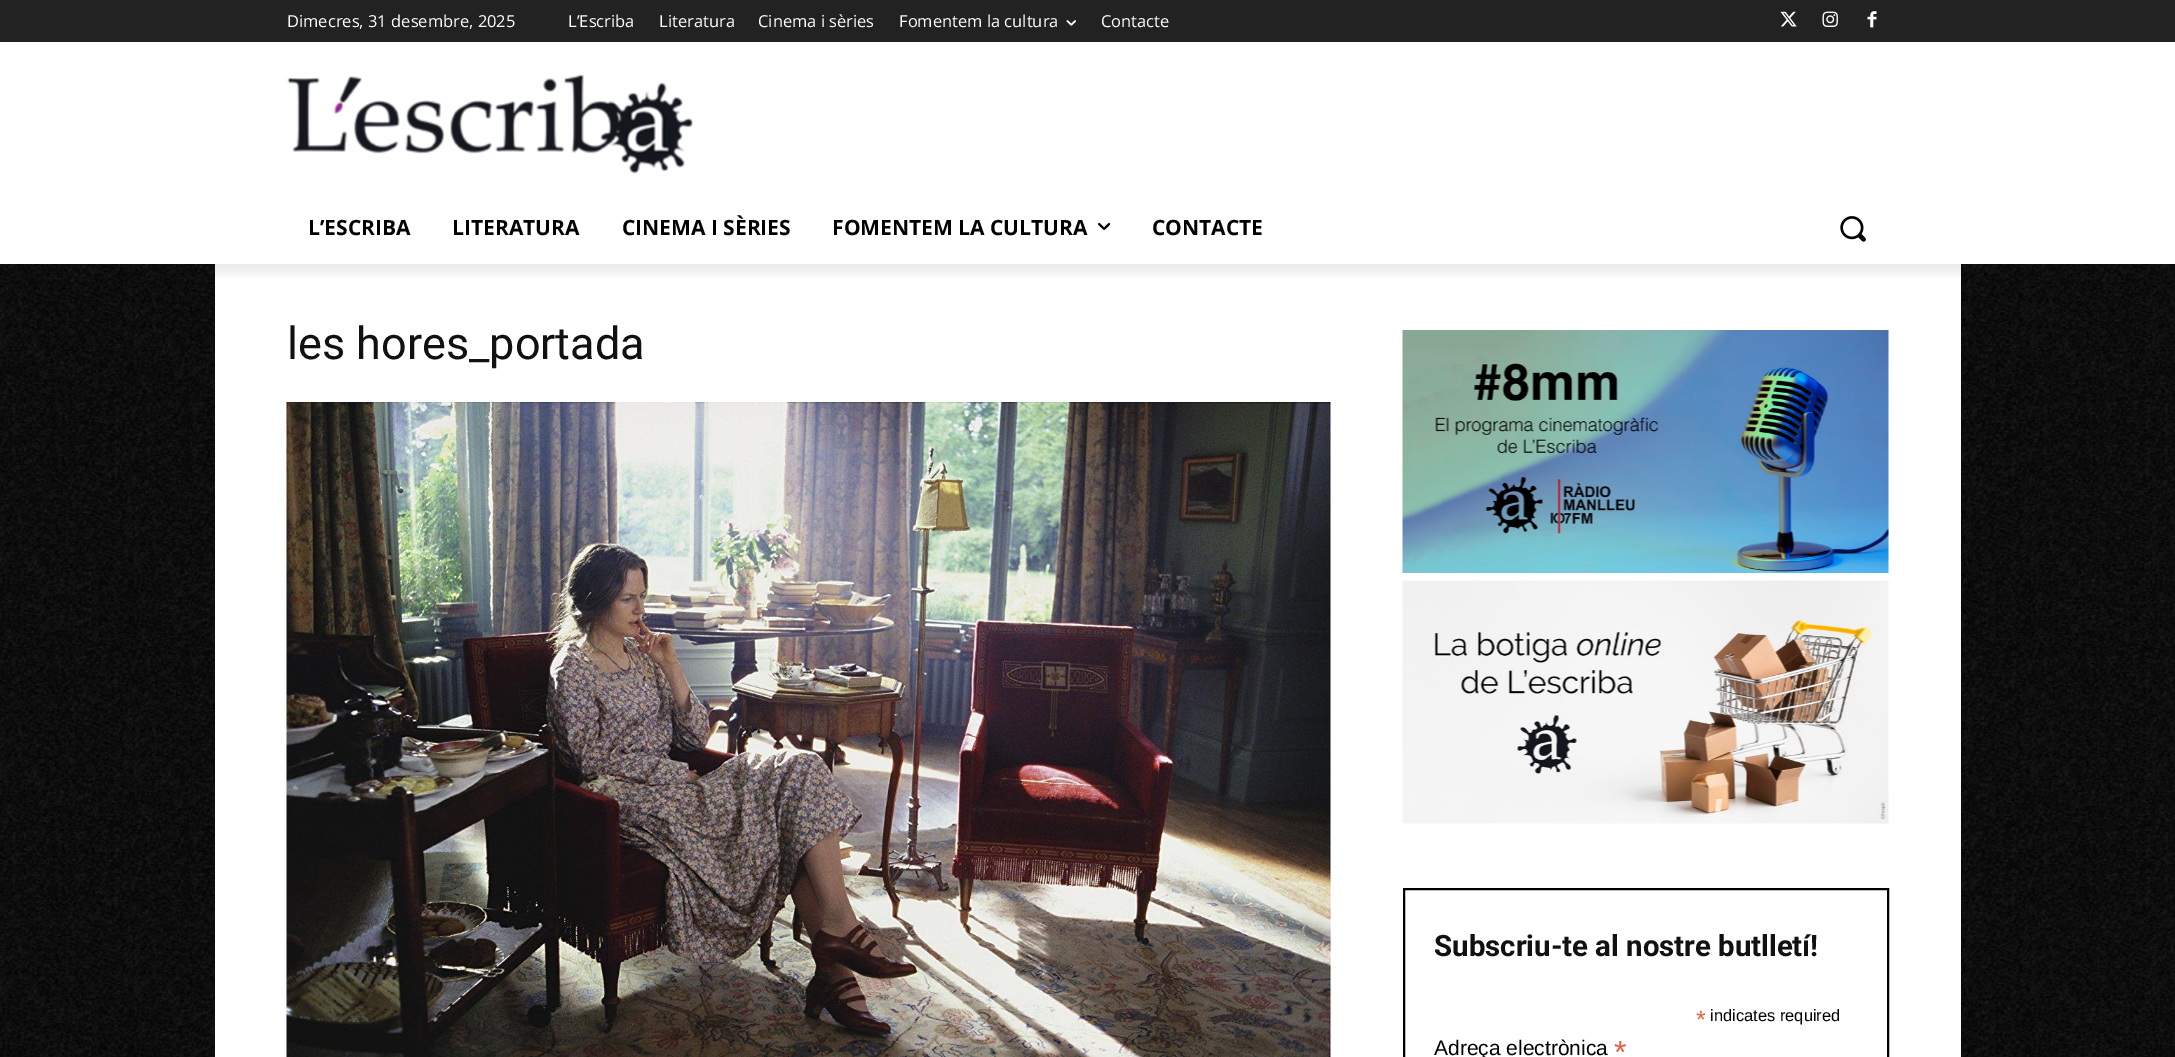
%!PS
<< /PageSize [2175 1057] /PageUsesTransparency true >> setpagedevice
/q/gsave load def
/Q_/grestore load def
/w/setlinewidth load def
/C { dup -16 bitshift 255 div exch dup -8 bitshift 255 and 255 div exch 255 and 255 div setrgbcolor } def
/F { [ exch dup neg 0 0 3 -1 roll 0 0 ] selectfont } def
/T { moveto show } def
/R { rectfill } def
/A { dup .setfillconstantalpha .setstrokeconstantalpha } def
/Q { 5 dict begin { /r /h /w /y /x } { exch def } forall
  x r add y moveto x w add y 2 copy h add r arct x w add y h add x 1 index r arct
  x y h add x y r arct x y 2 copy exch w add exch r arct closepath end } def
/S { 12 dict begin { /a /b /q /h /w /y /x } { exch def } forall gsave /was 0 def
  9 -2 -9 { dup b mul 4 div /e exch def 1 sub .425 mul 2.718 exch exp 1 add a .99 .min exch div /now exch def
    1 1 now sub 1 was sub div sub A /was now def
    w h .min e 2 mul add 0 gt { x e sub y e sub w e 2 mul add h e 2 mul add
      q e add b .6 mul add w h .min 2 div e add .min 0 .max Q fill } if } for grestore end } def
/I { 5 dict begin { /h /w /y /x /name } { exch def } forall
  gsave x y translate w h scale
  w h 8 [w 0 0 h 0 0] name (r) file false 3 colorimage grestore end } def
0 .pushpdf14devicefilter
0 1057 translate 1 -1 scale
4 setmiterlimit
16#FFFFFF C
0 0 2175 1057 R
(1.rgb) 0 264 2175 793 I
16#222222 C
0 0 2175 42 R
(3.rgb) 1780 11 17 16 I
(4.rgb) 1822 11 16 16 I
(5.rgb) 1867 11 10 17 I
(6.rgb) 287 74 406 100 I
16#FFFFFF C
215 264 1746 793 R
q
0 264 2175 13 rectclip
16#000000 C
0 9 2175 264 0 6 .08 S
Q_
/OpenSans-Regular 16.5 F
(Dimecres, 31 desembre, 2025) 287 27 T
(L’Escriba) 568 27 T
(Literatura) 659 27 T
(Cinema i sèries) 758 27 T
(Fomentem la cultura) 899 27 T
(2.rgb) 1066 20 10 6 I
(Contacte) 1101 27 T
/OpenSans-Bold 21 F
16#000000 C
(L’ESCRIBA) 308 235 T
(LITERATURA) 452 235 T
(CINEMA I SÈRIES) 622 235 T
(FOMENTEM LA CULTURA) 832 235 T
(7.rgb) 1098 222 13 8 I
(CONTACTE) 1152 235 T
(8.rgb) 1840 216 26 26 I
/Roboto-Regular 45 F
16#111111 C
(les hores_portada) 287 359 T
(9.rgb) 286 402 1045 655 I
(10.rgb) 1402 330 487 243 I
(11.rgb) 1402 580 487 244 I
16#000000 C
2 w
1404 889 484 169 rectstroke
/Roboto-Bold 29.4 F
16#111111 C
(Subscriu-te al nostre butlletí!) 1434 956 T
/LiberationSans-Regular 25 F
16#E85C41 C
(*) 1696 1028 T
/LiberationSans-Regular 16.5 F
16#000000 C
(indicates required) 1710 1021 T
/LiberationSans-Regular 21 F
(Adreça electrònica) 1434 1055 T
/LiberationSans-Regular 32 F
16#E85C41 C
(*) 1614 1063 T
.poppdf14devicefilter showpage
